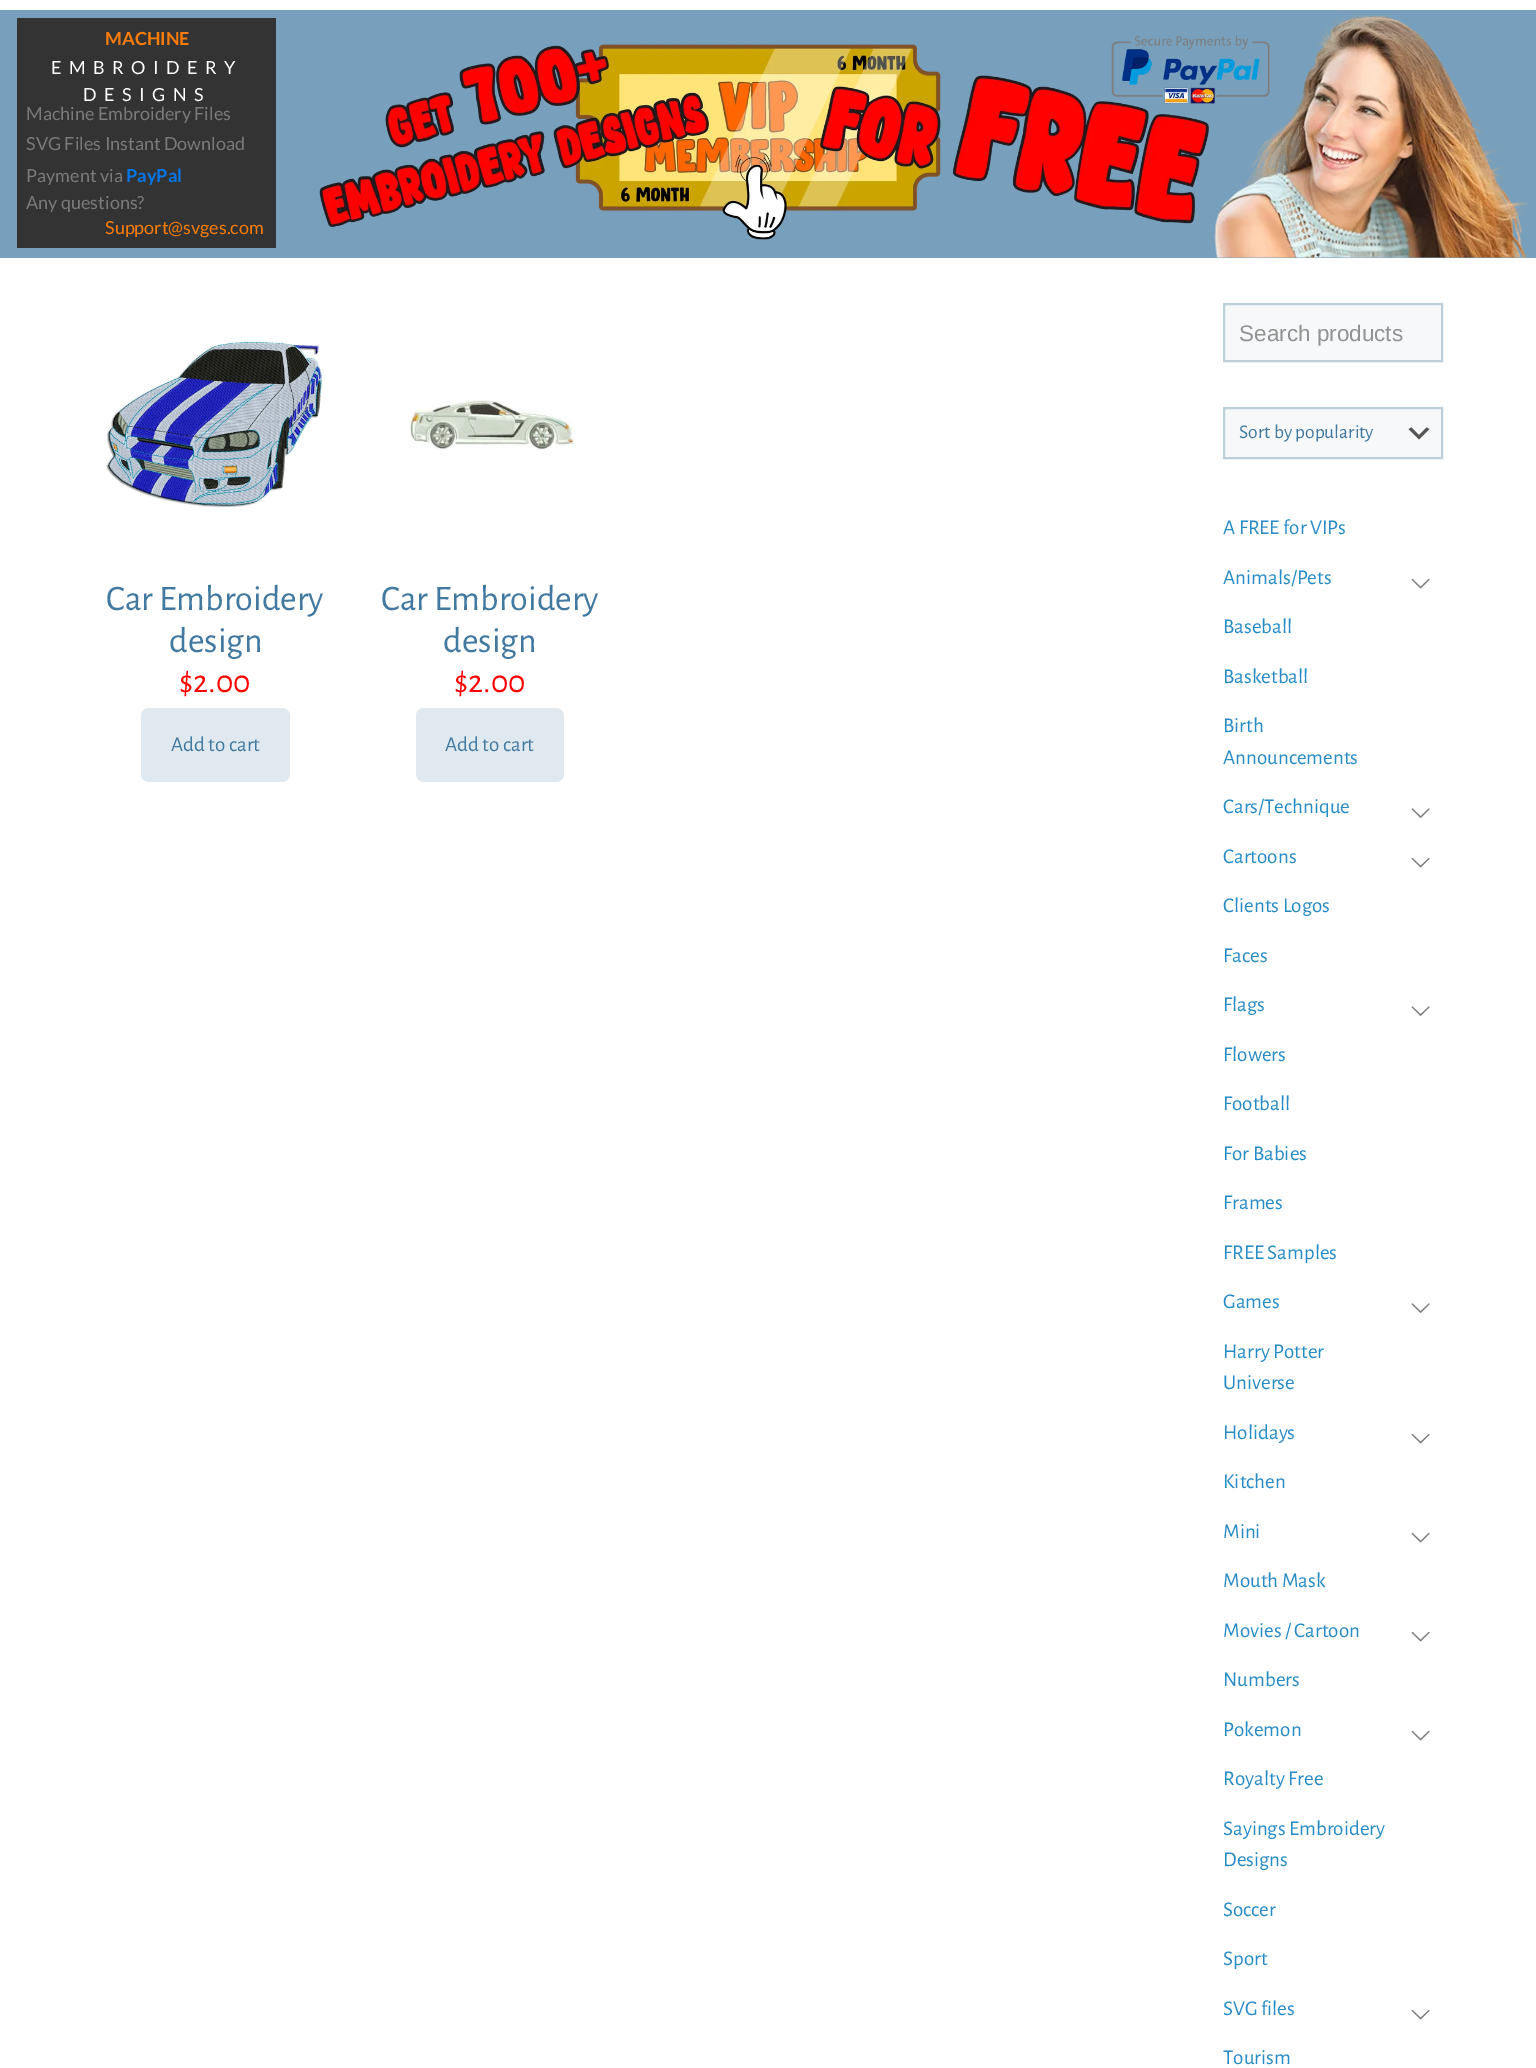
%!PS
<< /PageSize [1536 2068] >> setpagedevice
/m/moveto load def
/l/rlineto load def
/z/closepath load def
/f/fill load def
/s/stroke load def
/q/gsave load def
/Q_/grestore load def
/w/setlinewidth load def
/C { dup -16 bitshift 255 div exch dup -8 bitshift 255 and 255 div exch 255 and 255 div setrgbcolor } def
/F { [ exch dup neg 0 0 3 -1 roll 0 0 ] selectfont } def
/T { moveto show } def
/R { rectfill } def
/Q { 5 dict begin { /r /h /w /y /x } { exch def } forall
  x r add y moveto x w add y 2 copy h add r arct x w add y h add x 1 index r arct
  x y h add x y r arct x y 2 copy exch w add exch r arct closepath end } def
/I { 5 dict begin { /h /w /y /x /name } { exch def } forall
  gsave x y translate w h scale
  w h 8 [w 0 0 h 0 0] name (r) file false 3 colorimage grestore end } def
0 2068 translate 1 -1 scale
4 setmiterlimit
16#FFFFFF C
0 0 1536 2068 R
16#78A0BD C
0 10 1536 248 R
16#333333 C
17 18 259 230 R
(1.rgb) 1214 13 314 245 I
/Lato-Bold 18 F
16#F87C09 C
(MACHINE) 105 45 T
/Lato-Regular 18 F
16#FFFFFF C
51 74 m 7.5 0 (EMBROIDERY) ashow
83 101 m 7.5 0 (DESIGNS) ashow
(2.rgb) 1111 35 159 69 I
16#7A7A7A C
(Machine Embroidery Files) 26 120 T
(SVG Files Instant Download) 26 150 T
(Payment via) 26 182 T
/Lato-Bold 18 F
16#0677E8 C
(PayPal) 126 182 T
(3.rgb) 319 44 890 196 I
/Lato-Regular 18 F
16#7A7A7A C
(Any questions?) 26 209 T
16#F87C09 C
(Support@svges.com) 105 234 T
(4.rgb) 106 341 217 167 I
/AlegreyaSans-Regular 36 F
16#4179A0 C
(Car Embroidery) 106 610 T
(design) 169 652 T
/AlegreyaSans-Regular 33 F
16#FF0000 C
($2.00) 179 692 T
16#E1E9F0 C
141 708 149 74 8 Q f
/AlegreyaSans-Regular 21 F
16#4179A0 C
(Add to cart) 171 751 T
(5.rgb) 410 400 166 50 I
/AlegreyaSans-Regular 36 F
(Car Embroidery) 381 610 T
(design) 443 652 T
/AlegreyaSans-Regular 33 F
16#FF0000 C
($2.00) 454 692 T
16#E1E9F0 C
416 708 148 74 8 Q f
/AlegreyaSans-Regular 21 F
16#4179A0 C
(Add to cart) 445 751 T
16#F7F8F9 C
1224 304 m 218 0 l 0 57 l -218 0 l z q f Q_
16#BECFDC C
2 w
s
/LiberationSans-Regular 22.5 F
16#929292 C
(Search products) 1239 341 T
16#F7F8F9 C
1225 409 216 48 R
16#555555 C
1411.5 427.5 m 7.5 7.5 l 7.5 -7.5 l 3 1.5 l -10.5 10.5 l -10.5 -10.5 l z f
16#BECFDC C
1224 408 218 50 rectstroke
/AlegreyaSans-Regular 19.5 F
16#4179A0 C
(Sort by popularity) 1239 438 T
/AlegreyaSans-Regular 21 F
16#278CC6 C
(A FREE for VIPs) 1223 534 T
(Animals/Pets) 1223 584 T
(6.rgb) 1411 578 19 11 I
(Baseball) 1223 633 T
(Basketball) 1223 683 T
(Birth) 1223 732 T
(Announcements) 1223 764 T
(Cars/Technique) 1223 813 T
(7.rgb) 1411 808 19 10 I
(Cartoons) 1223 863 T
(6.rgb) 1411 857 19 11 I
(Clients Logos) 1223 912 T
(Faces) 1223 962 T
(Flags) 1223 1011 T
(7.rgb) 1411 1006 19 10 I
(Flowers) 1223 1061 T
(Football) 1223 1110 T
(For Babies) 1223 1160 T
(Frames) 1223 1209 T
(FREE Samples) 1223 1259 T
(Games) 1223 1308 T
(7.rgb) 1411 1303 19 10 I
(Harry Potter) 1223 1358 T
(Universe) 1223 1389 T
(Holidays) 1223 1439 T
(6.rgb) 1411 1433 19 11 I
(Kitchen) 1223 1488 T
(Mini) 1223 1538 T
(6.rgb) 1411 1532 19 11 I
(Mouth Mask) 1223 1587 T
(Movies / Cartoon) 1223 1637 T
(6.rgb) 1411 1631 19 11 I
(Numbers) 1223 1686 T
(Pokemon) 1223 1736 T
(6.rgb) 1411 1730 19 11 I
(Royalty Free) 1223 1785 T
(Sayings Embroidery) 1223 1835 T
(Designs) 1223 1866 T
(Soccer) 1223 1916 T
(Sport) 1223 1965 T
(SVG files) 1223 2015 T
(6.rgb) 1411 2009 19 11 I
(Tourism) 1223 2064 T
showpage
